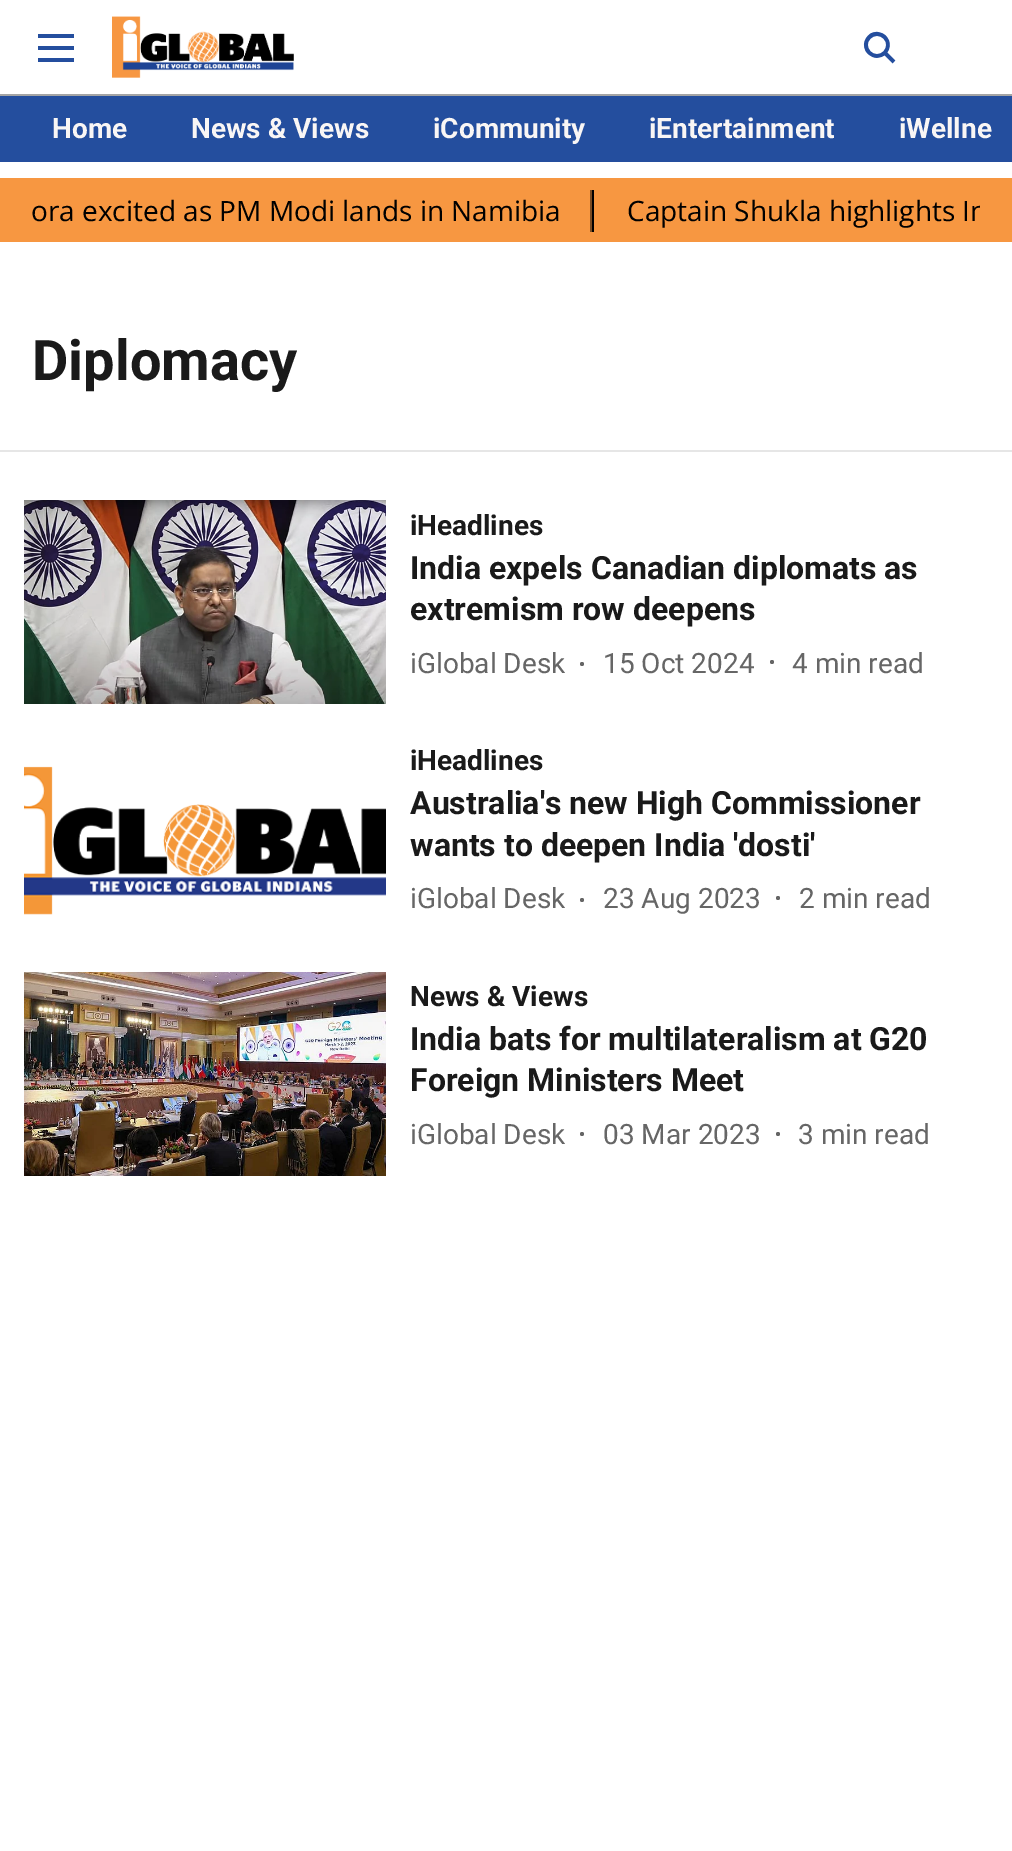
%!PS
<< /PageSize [1012 1851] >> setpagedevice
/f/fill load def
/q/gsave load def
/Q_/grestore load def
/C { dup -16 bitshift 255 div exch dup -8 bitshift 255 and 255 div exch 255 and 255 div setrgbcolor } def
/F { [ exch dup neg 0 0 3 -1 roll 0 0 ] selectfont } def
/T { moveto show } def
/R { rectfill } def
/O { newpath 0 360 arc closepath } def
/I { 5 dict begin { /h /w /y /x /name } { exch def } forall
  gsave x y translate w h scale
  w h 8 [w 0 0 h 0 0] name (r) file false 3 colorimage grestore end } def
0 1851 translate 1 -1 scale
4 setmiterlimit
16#FFFFFF C
0 0 1012 1851 R
16#A4A4A4 C
0 94 1012 2 R
(1.rgb) 38 34 36 28 I
(2.rgb) 112 16 182 62 I
(3.rgb) 863 31 33 33 I
16#244E9E C
0 96 1012 66 R
/Roboto-Bold 28 F
16#F9F6F5 C
(Home) 52 138 T
(News & Views) 191 138 T
(iCommunity) 433 138 T
(iEntertainment) 649 138 T
(iWellne) 899 138 T
16#F79741 C
0 178 1012 64 R
16#000000 C
592 190 2 42 R
/OpenSans-Regular 28 F
(ora excited as PM Modi lands in Namibia) 31 221 T
16#7C4C21 C
590 190 2 42 R
q
32 190 948 42 rectclip
16#000000 C
(Captain Shukla highlights In) 627 221 T
Q_
16#E6E6E6 C
0 450 1012 2 R
/Roboto-Bold 56 F
16#1A1A1A C
(Diplomacy) 32 380 T
(4.rgb) 24 500 362 204 I
/Roboto-Bold 28 F
(iHeadlines) 410 535 T
/Roboto-Bold 32 F
(India expels Canadian diplomats as) 410 579 T
(extremism row deepens) 410 620 T
/Roboto-Regular 28 F
16#666666 C
(iGlobal Desk) 410 673 T
582 664 2 O f
(15 Oct 2024) 603 673 T
772 662 2 O f
(4 min read) 792 673 T
(5.rgb) 24 766 362 149 I
/Roboto-Bold 28 F
16#1A1A1A C
(iHeadlines) 410 770 T
/Roboto-Bold 32 F
(Australia's new High Commissioner) 410 814 T
(wants to deepen India 'dosti') 410 856 T
/Roboto-Regular 28 F
16#666666 C
(iGlobal Desk) 410 908 T
582 900 2 O f
(23 Aug 2023) 603 908 T
778 898 2 O f
(2 min read) 799 908 T
(6.rgb) 24 972 362 204 I
/Roboto-Bold 28 F
16#1A1A1A C
(News & Views) 410 1006 T
/Roboto-Bold 32 F
(India bats for multilateralism at G20) 410 1050 T
(Foreign Ministers Meet) 410 1091 T
/Roboto-Regular 28 F
16#666666 C
(iGlobal Desk) 410 1144 T
582 1134 2 O f
(03 Mar 2023) 603 1144 T
778 1134 2 O f
(3 min read) 798 1144 T
showpage
